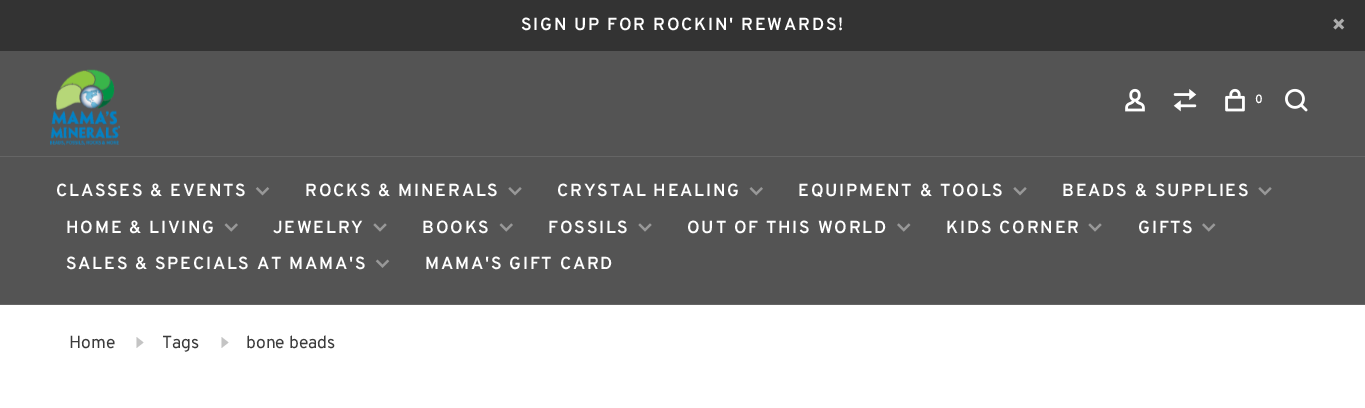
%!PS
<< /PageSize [1365 408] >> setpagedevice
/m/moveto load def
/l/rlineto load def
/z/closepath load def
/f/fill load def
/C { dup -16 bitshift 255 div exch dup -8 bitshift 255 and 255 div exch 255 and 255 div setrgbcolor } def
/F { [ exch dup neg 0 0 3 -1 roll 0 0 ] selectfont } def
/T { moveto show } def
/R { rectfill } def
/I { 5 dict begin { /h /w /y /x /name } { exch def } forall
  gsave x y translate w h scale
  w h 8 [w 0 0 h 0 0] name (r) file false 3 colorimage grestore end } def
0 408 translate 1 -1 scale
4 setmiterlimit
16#FFFFFF C
0 0 1365 408 R
16#333333 C
0 0 1365 51 R
/Overpass-SemiBold 17.5 F
16#FFFFFF C
521 30 m 1.75 0 (SIGN UP FOR ROCKIN' REWARDS!) ashow
(1.rgb) 1333 18 12 12 I
16#545454 C
0 51 1365 253 R
16#656565 C
0 156 1365 1 R
(2.rgb) 50 69 70 77 I
(3.rgb) 1125 88 20 24 I
(4.rgb) 1173 89 24 23 I
(5.rgb) 1225 88 20 24 I
/Overpass-SemiBold 12 F
16#FFFFFF C
1255 103 m 1.75 0 (0) ashow
(6.rgb) 1285 88 23 24 I
16#656565 C
0 304 1365 1 R
/Overpass-SemiBold 17.5 F
16#FFFFFF C
56 196 m 1.75 0 (CLASSES & EVENTS) ashow
(7.rgb) 255 187 15 9 I
305 196 m 1.75 0 (ROCKS & MINERALS) ashow
(8.rgb) 508 187 14 9 I
557 196 m 1.75 0 (CRYSTAL HEALING) ashow
(9.rgb) 749 187 14 9 I
798 196 m 1.75 0 (EQUIPMENT & TOOLS) ashow
(8.rgb) 1013 187 14 9 I
1062 196 m 1.75 0 (BEADS & SUPPLIES) ashow
(8.rgb) 1258 187 14 9 I
66 233 m 1.75 0 (HOME & LIVING) ashow
(10.rgb) 224 223 14 9 I
273 233 m 1.75 0 (JEWELRY) ashow
(11.rgb) 373 223 14 9 I
422 233 m 1.75 0 (BOOKS) ashow
(10.rgb) 499 223 14 9 I
548 233 m 1.75 0 (FOSSILS) ashow
(11.rgb) 638 223 14 9 I
687 233 m 1.75 0 (OUT OF THIS WORLD) ashow
(12.rgb) 897 223 14 9 I
946 233 m 1.75 0 (KIDS CORNER) ashow
(11.rgb) 1088 223 14 9 I
1138 233 m 1.75 0 (GIFTS) ashow
(12.rgb) 1202 223 14 9 I
66 269 m 1.75 0 (SALES & SPECIALS AT MAMA'S) ashow
(13.rgb) 375 259 15 9 I
425 269 m 1.75 0 (MAMA'S GIFT CARD) ashow
/Overpass-Regular 17.5 F
16#3B3B3B C
(Home) 69 348 T
16#C4C4C4 C
136.5 348 m 7 -5.5 l -7 -5.5 l z f
16#3B3B3B C
(Tags) 162 348 T
16#C4C4C4 C
221.5 348 m 7 -5.5 l -7 -5.5 l z f
16#3B3B3B C
(bone beads) 246 348 T
showpage
